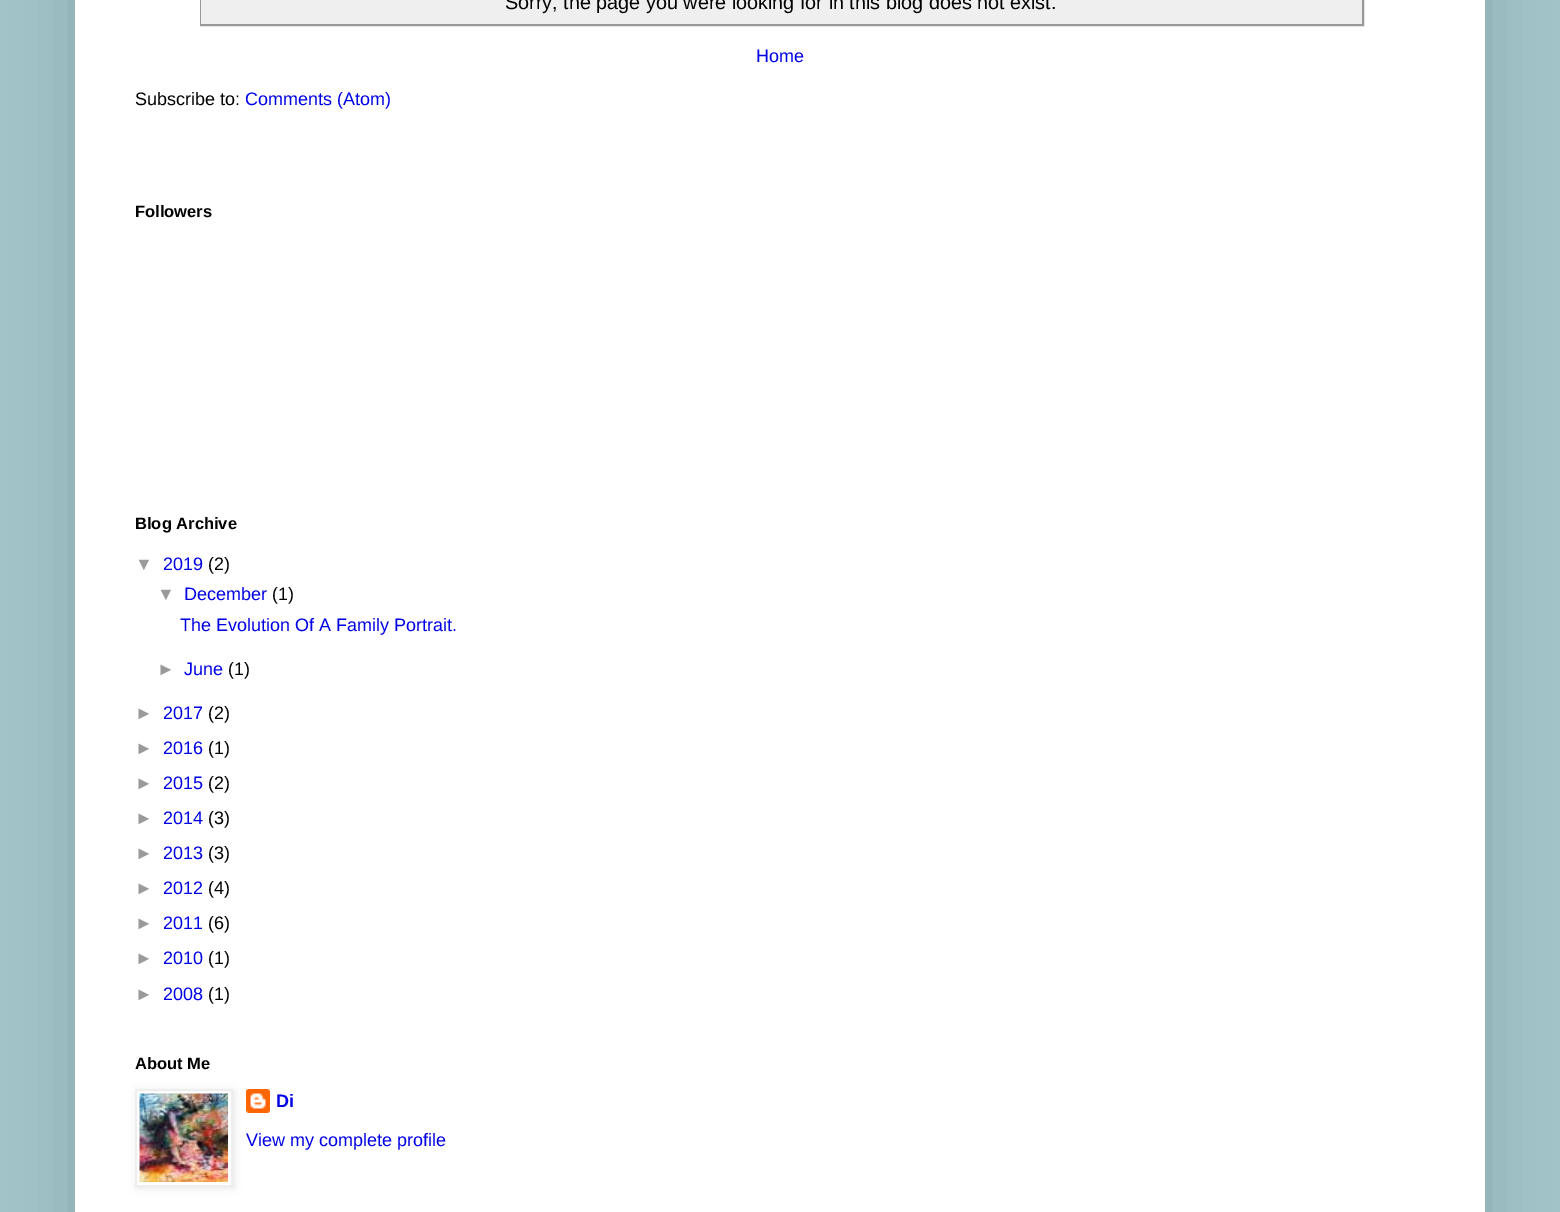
%!PS
<< /PageSize [1560 1212] /PageUsesTransparency true >> setpagedevice
/m/moveto load def
/l/rlineto load def
/z/closepath load def
/f/fill load def
/s/stroke load def
/q/gsave load def
/Q_/grestore load def
/w/setlinewidth load def
/C { dup -16 bitshift 255 div exch dup -8 bitshift 255 and 255 div exch 255 and 255 div setrgbcolor } def
/F { [ exch dup neg 0 0 3 -1 roll 0 0 ] selectfont } def
/T { moveto show } def
/R { rectfill } def
/A { dup .setfillconstantalpha .setstrokeconstantalpha } def
/Q { 5 dict begin { /r /h /w /y /x } { exch def } forall
  x r add y moveto x w add y 2 copy h add r arct x w add y h add x 1 index r arct
  x y h add x y r arct x y 2 copy exch w add exch r arct closepath end } def
/S { 12 dict begin { /a /b /q /h /w /y /x } { exch def } forall gsave /was 0 def
  9 -2 -9 { dup b mul 4 div /e exch def 1 sub .425 mul 2.718 exch exp 1 add a .99 .min exch div /now exch def
    1 1 now sub 1 was sub div sub A /was now def
    w h .min e 2 mul add 0 gt { x e sub y e sub w e 2 mul add h e 2 mul add
      q e add b .6 mul add w h .min 2 div e add .min 0 .max Q fill } if } for grestore end } def
/I { 5 dict begin { /h /w /y /x /name } { exch def } forall
  gsave x y translate w h scale
  w h 8 [w 0 0 h 0 0] name (r) file false 3 colorimage grestore end } def
0 .pushpdf14devicefilter
0 1212 translate 1 -1 scale
4 setmiterlimit
16#A2C4C9 C
0 0 1560 1212 R
16#000000 C
75 -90 1410 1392 0 30 .15 S
16#FFFFFF C
75 0 1410 1212 R
16#999999 C
2 w
201 -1 1162 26 rectstroke
16#EFEFEF C
201 0 1161 24 R
/LiberationSans-Regular 19.8 F
16#000000 C
(Sorry, the page you were looking for in this blog does not exist.) 505 9 T
/LiberationSans-Regular 18 F
16#0000E5 C
(Home) 756 62 T
16#000000 C
(Subscribe to:) 135 105 T
16#0000E5 C
(Comments \(Atom\)) 245 105 T
/LiberationSans-Bold 16.5 F
16#000000 C
(Followers) 135 217 T
(Blog Archive) 135 529 T
/LiberationSans-Regular 18 F
16#9A9A9A C
(▼) 135 570 T
16#0000E5 C
(2019) 163 570 T
16#000000 C
(\(2\)) 208 570 T
16#9A9A9A C
(▼) 157 600 T
16#0000E5 C
(December) 184 600 T
16#000000 C
(\(1\)) 272 600 T
16#0000E5 C
(The Evolution Of A Family Portrait.) 180 631 T
16#9A9A9A C
(►) 157 675 T
16#0000E5 C
(June) 184 675 T
16#000000 C
(\(1\)) 228 675 T
16#9A9A9A C
(►) 135 719 T
16#0000E5 C
(2017) 163 719 T
16#000000 C
(\(2\)) 208 719 T
16#9A9A9A C
(►) 135 754 T
16#0000E5 C
(2016) 163 754 T
16#000000 C
(\(1\)) 208 754 T
16#9A9A9A C
(►) 135 789 T
16#0000E5 C
(2015) 163 789 T
16#000000 C
(\(2\)) 208 789 T
16#9A9A9A C
(►) 135 824 T
16#0000E5 C
(2014) 163 824 T
16#000000 C
(\(3\)) 208 824 T
16#9A9A9A C
(►) 135 859 T
16#0000E5 C
(2013) 163 859 T
16#000000 C
(\(3\)) 208 859 T
16#9A9A9A C
(►) 135 894 T
16#0000E5 C
(2012) 163 894 T
16#000000 C
(\(4\)) 208 894 T
16#9A9A9A C
(►) 135 929 T
16#0000E5 C
(2011) 163 929 T
16#000000 C
(\(6\)) 208 929 T
16#9A9A9A C
(►) 135 964 T
16#0000E5 C
(2010) 163 964 T
16#000000 C
(\(1\)) 208 964 T
16#9A9A9A C
(►) 135 1000 T
16#0000E5 C
(2008) 163 1000 T
16#000000 C
(\(1\)) 208 1000 T
/LiberationSans-Bold 16.5 F
(About Me) 135 1069 T
(2.rgb) 246 1089 24 24 I
137 1091 97 97 0 4 .1 S
16#FFFFFF C
136 1090 m 96 0 l 0 96 l -96 0 l z q f Q_
16#EEEEEE C
s
(1.rgb) 139 1093 89 89 I
/LiberationSans-Bold 18 F
16#0000E5 C
(Di) 276 1107 T
/LiberationSans-Regular 18 F
(View my complete profile) 246 1146 T
.poppdf14devicefilter showpage
